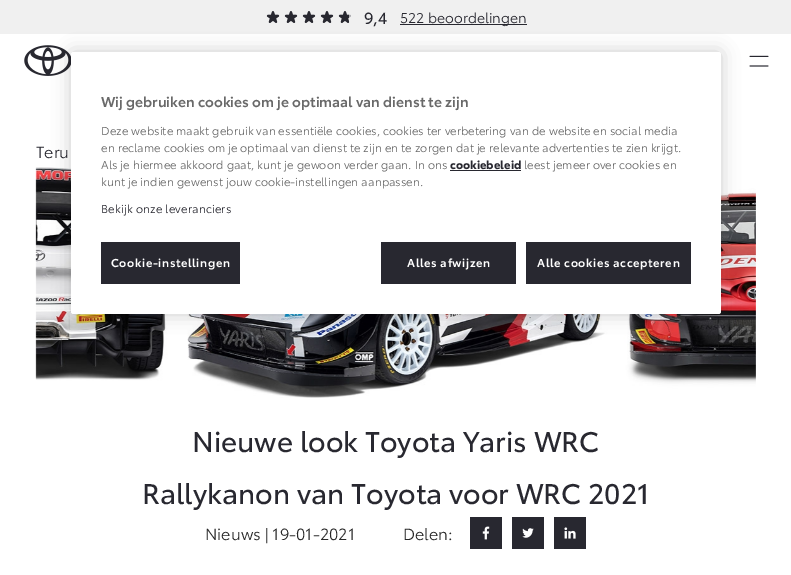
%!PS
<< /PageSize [791 575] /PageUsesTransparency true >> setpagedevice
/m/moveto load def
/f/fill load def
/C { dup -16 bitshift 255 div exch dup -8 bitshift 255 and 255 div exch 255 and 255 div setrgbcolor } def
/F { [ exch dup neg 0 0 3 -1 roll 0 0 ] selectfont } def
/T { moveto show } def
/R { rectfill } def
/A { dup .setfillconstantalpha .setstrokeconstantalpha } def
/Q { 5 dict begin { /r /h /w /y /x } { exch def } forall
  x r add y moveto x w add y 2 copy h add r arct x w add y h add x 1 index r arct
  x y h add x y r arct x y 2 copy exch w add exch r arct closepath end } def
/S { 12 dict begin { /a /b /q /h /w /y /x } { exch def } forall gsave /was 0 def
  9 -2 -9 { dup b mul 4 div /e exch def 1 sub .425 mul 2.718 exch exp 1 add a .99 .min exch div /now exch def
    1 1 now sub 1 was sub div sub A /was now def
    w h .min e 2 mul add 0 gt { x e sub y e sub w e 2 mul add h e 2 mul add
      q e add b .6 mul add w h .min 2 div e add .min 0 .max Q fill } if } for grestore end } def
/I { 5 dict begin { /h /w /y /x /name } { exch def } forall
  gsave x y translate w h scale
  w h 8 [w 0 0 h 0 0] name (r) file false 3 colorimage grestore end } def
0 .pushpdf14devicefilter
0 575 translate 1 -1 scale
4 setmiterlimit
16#FFFFFF C
0 0 791 575 R
16#F0F0F0 C
0 0 791 34 R
(2.rgb) 267 11 84 12 I
(1.rgb) 266 11 83 12 I
/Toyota-Regular 16 F
16#282830 C
(9,4) 364 24 T
400 24 127 1 R
/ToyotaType-Regular 14 F
(522 beoordelingen) 400 23 T
(3.rgb) 24 45 47 31 I
(4.rgb) 749 55 20 12 I
(5.rgb) 35 167 721 231 I
16#000000 C
71 52 650 262 2.5 9 .2 S
16#FFFFFF C
71 52 650 262 2.5 Q f
/ToyotaType-SemiBold 14 F
16#696969 C
(Wij gebruiken cookies om je optimaal van dienst te zijn) 101 107 T
/ToyotaType-Regular 11.38 F
(Deze website maakt gebruik van essentiële cookies, cookies ter verbetering van de website en social media) 101 135 T
(en reclame cookies om je optimaal van dienst te zijn en te zorgen dat je relevante advertenties te zien krijgt.) 101 152 T
(Als je hiermee akkoord gaat, kunt je gewoon verder gaan. In ons) 101 169 T
/Toyota-Bold 11.38 F
16#282830 C
(cookiebeleid) 450 169 T
450 170 71 1 R
/ToyotaType-Regular 11.38 F
16#696969 C
(leest jemeer over cookies en) 524 169 T
(kunt je indien gewenst jouw cookie-instellingen aanpassen.) 101 186 T
16#282830 C
101 213 m .1 0 (Bekijk onze leveranciers) ashow
101 242 139 42 R
/ToyotaType-SemiBold 11.38 F
16#FFFFFF C
111 267 m .6 0 (Cookie-instellingen) ashow
16#282830 C
381 242 135 42 R
16#FFFFFF C
407 267 m .6 0 (Alles afwijzen) ashow
16#282830 C
526 242 165 42 R
16#FFFFFF C
537 267 m .6 0 (Alle cookies accepteren) ashow
/ToyotaType-Regular 16 F
16#282830 C
(Teru) 36 158 T
/Toyota-Regular 28 F
(Nieuwe look Toyota Yaris WRC) 192 452 T
(Rallykanon van Toyota voor WRC 2021) 142 504 T
/ToyotaType-Regular 16 F
16#282828 C
(Nieuws | 19-01-2021) 205 540 T
(Delen:) 403 540 T
16#282830 C
470 517 32 32 R
(6.rgb) 482 526 8 14 I
512 517 32 32 R
(7.rgb) 522 528 12 10 I
554 517 32 32 R
(8.rgb) 564 527 12 12 I
.poppdf14devicefilter showpage
